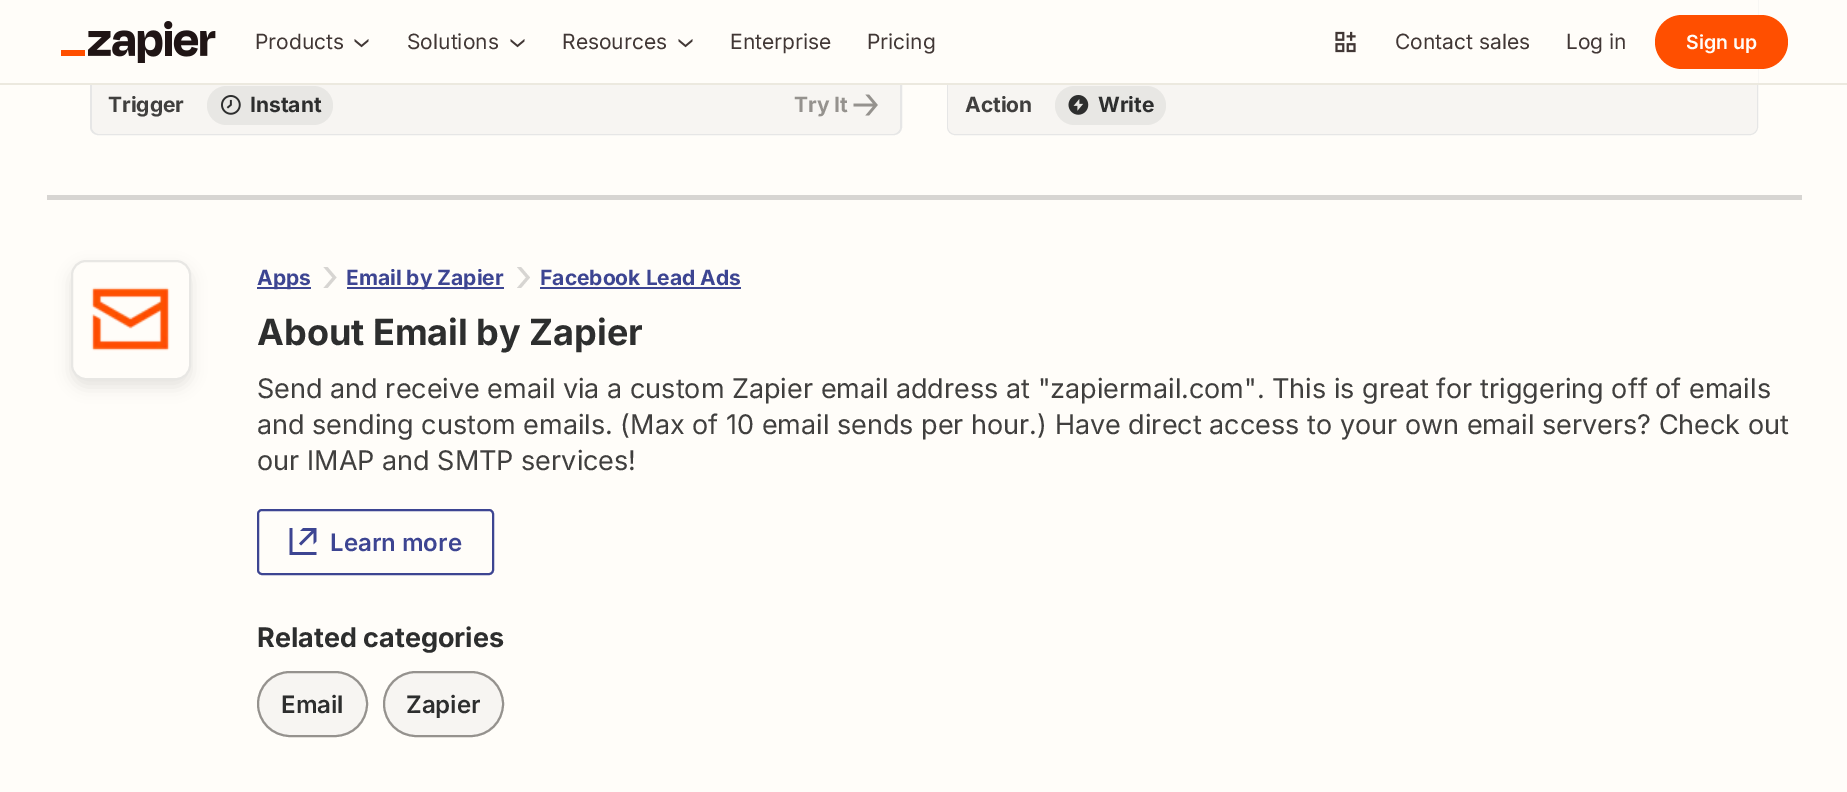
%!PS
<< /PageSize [1847 792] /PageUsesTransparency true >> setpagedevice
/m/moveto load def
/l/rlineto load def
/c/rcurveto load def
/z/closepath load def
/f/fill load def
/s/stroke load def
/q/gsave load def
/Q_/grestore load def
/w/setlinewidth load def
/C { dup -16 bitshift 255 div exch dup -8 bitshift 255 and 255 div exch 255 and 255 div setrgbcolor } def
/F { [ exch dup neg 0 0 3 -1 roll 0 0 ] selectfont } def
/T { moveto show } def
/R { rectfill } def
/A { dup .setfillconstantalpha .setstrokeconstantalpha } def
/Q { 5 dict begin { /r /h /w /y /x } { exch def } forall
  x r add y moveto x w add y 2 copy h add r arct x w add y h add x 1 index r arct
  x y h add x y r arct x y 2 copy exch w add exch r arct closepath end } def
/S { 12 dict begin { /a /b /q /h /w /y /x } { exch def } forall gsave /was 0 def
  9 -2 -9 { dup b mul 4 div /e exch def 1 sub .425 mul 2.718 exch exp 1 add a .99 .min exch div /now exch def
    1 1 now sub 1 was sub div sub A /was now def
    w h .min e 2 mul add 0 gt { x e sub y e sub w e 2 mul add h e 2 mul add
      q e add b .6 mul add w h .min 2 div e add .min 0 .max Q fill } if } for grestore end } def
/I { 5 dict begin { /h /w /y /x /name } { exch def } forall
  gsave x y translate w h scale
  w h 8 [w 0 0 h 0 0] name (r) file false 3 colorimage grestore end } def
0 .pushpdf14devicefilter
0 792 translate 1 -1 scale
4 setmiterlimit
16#FFFDF9 C
0 0 1847 792 R
16#E6E6E6 C
2 w
91 -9 810 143 7 Q s
16#F7F5F2 C
92 74 m 808 0 l 0 52 l 0 4.5 -3.5 8 -8 8 c -792 0 l -4.5 0 -8 -3.5 -8 -8 c z f
16#E6E6E6 C
948 -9 809 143 7 Q s
16#F7F5F2 C
948 74 m 809 0 l 0 52 l 0 4.5 -3.5 8 -8 8 c -793 0 l -4.5 0 -8 -3.5 -8 -8 c z f
16#FFFDF9 C
90 0 1668 83 R
16#ECE9DF C
0 83 1847 2 R
(1.rgb) 61 21 155 42 I
/Inter-Regular 21 F
16#413735 C
(Products) 255 49 T
(2.rgb) 354 39 15 9 I
(Solutions) 407 49 T
(2.rgb) 510 39 15 9 I
(Resources) 562 49 T
(2.rgb) 678 39 15 9 I
(Enterprise) 730 49 T
(Pricing) 867 49 T
(3.rgb) 1335 31 21 22 I
(Contact sales) 1395 49 T
(Log in) 1566 49 T
16#FF4F00 C
1655 15 133 54 27 Q f
/Inter-SemiBold 19.5 F
16#FFFDF9 C
(Sign up) 1686 49 T
/Inter-Bold 21 F
16#403F3E C
(Trigger) 108 112 T
16#E8E7E4 C
207 86 126 39 19.5 Q f
(4.rgb) 221 95 20 20 I
16#2D2E2E C
(Instant) 250 112 T
16#95928E C
(Try It) 794 112 T
(5.rgb) 853 94 25 22 I
16#403F3E C
(Action) 965 112 T
16#E8E7E4 C
1055 86 111 39 19.5 Q f
(6.rgb) 1068 95 21 20 I
16#2D2E2E C
(Write) 1098 112 T
16#D7D5D2 C
47 195 1755 5 R
16#000000 C
71 267 120 120 15 7.5 .1 S
16#FFFDF9 C
72 261 118 118 14 Q q f Q_
16#E8E7E4 C
s
(7.rgb) 91 287 79 64 I
16#3D4592 C
257 287 54 2 R
(Apps) 257 285 T
16#D7D5D2 C
327.5 267 m -4 0 l 9 10.5 l -9 10.5 l 4 0 l 9 -10.5 l z f
16#3D4592 C
347 287 157 2 R
(Email by Zapier) 346 285 T
16#D7D5D2 C
521 267 m -4 0 l 9 10.5 l -9 10.5 l 4 0 l 9 -10.5 l z f
16#3D4592 C
(Facebook Lead Ads) 540 285 T
540 287 201 2 R
/Inter-Bold 36 F
16#2D2E2E C
(About Email by Zapier) 257 345 T
/Inter-Regular 27 F
16#403F3E C
(Send and receive email via a custom Zapier email address at "zapiermail.com". This is great for triggering off of emails) 257 398 T
(and sending custom emails. \(Max of 10 email sends per hour.\) Have direct access to your own email servers? Check out) 257 434 T
(our IMAP and SMTP services!) 257 470 T
16#3D4592 C
258 510 235 64 4 Q s
(8.rgb) 289 528 28 27 I
/Inter-SemiBold 24 F
(Learn more) 330 551 T
/Inter-Bold 27 F
16#2D2E2E C
(Related categories) 257 647 T
16#F7F5F2 C
258 672 109 64 32 Q q f Q_
16#95928E C
s
/Inter-SemiBold 24 F
16#2D2E2E C
(Email) 281 713 T
16#F7F5F2 C
384 672 119 64 32 Q q f Q_
16#95928E C
s
16#2D2E2E C
(Zapier) 406 713 T
.poppdf14devicefilter showpage
